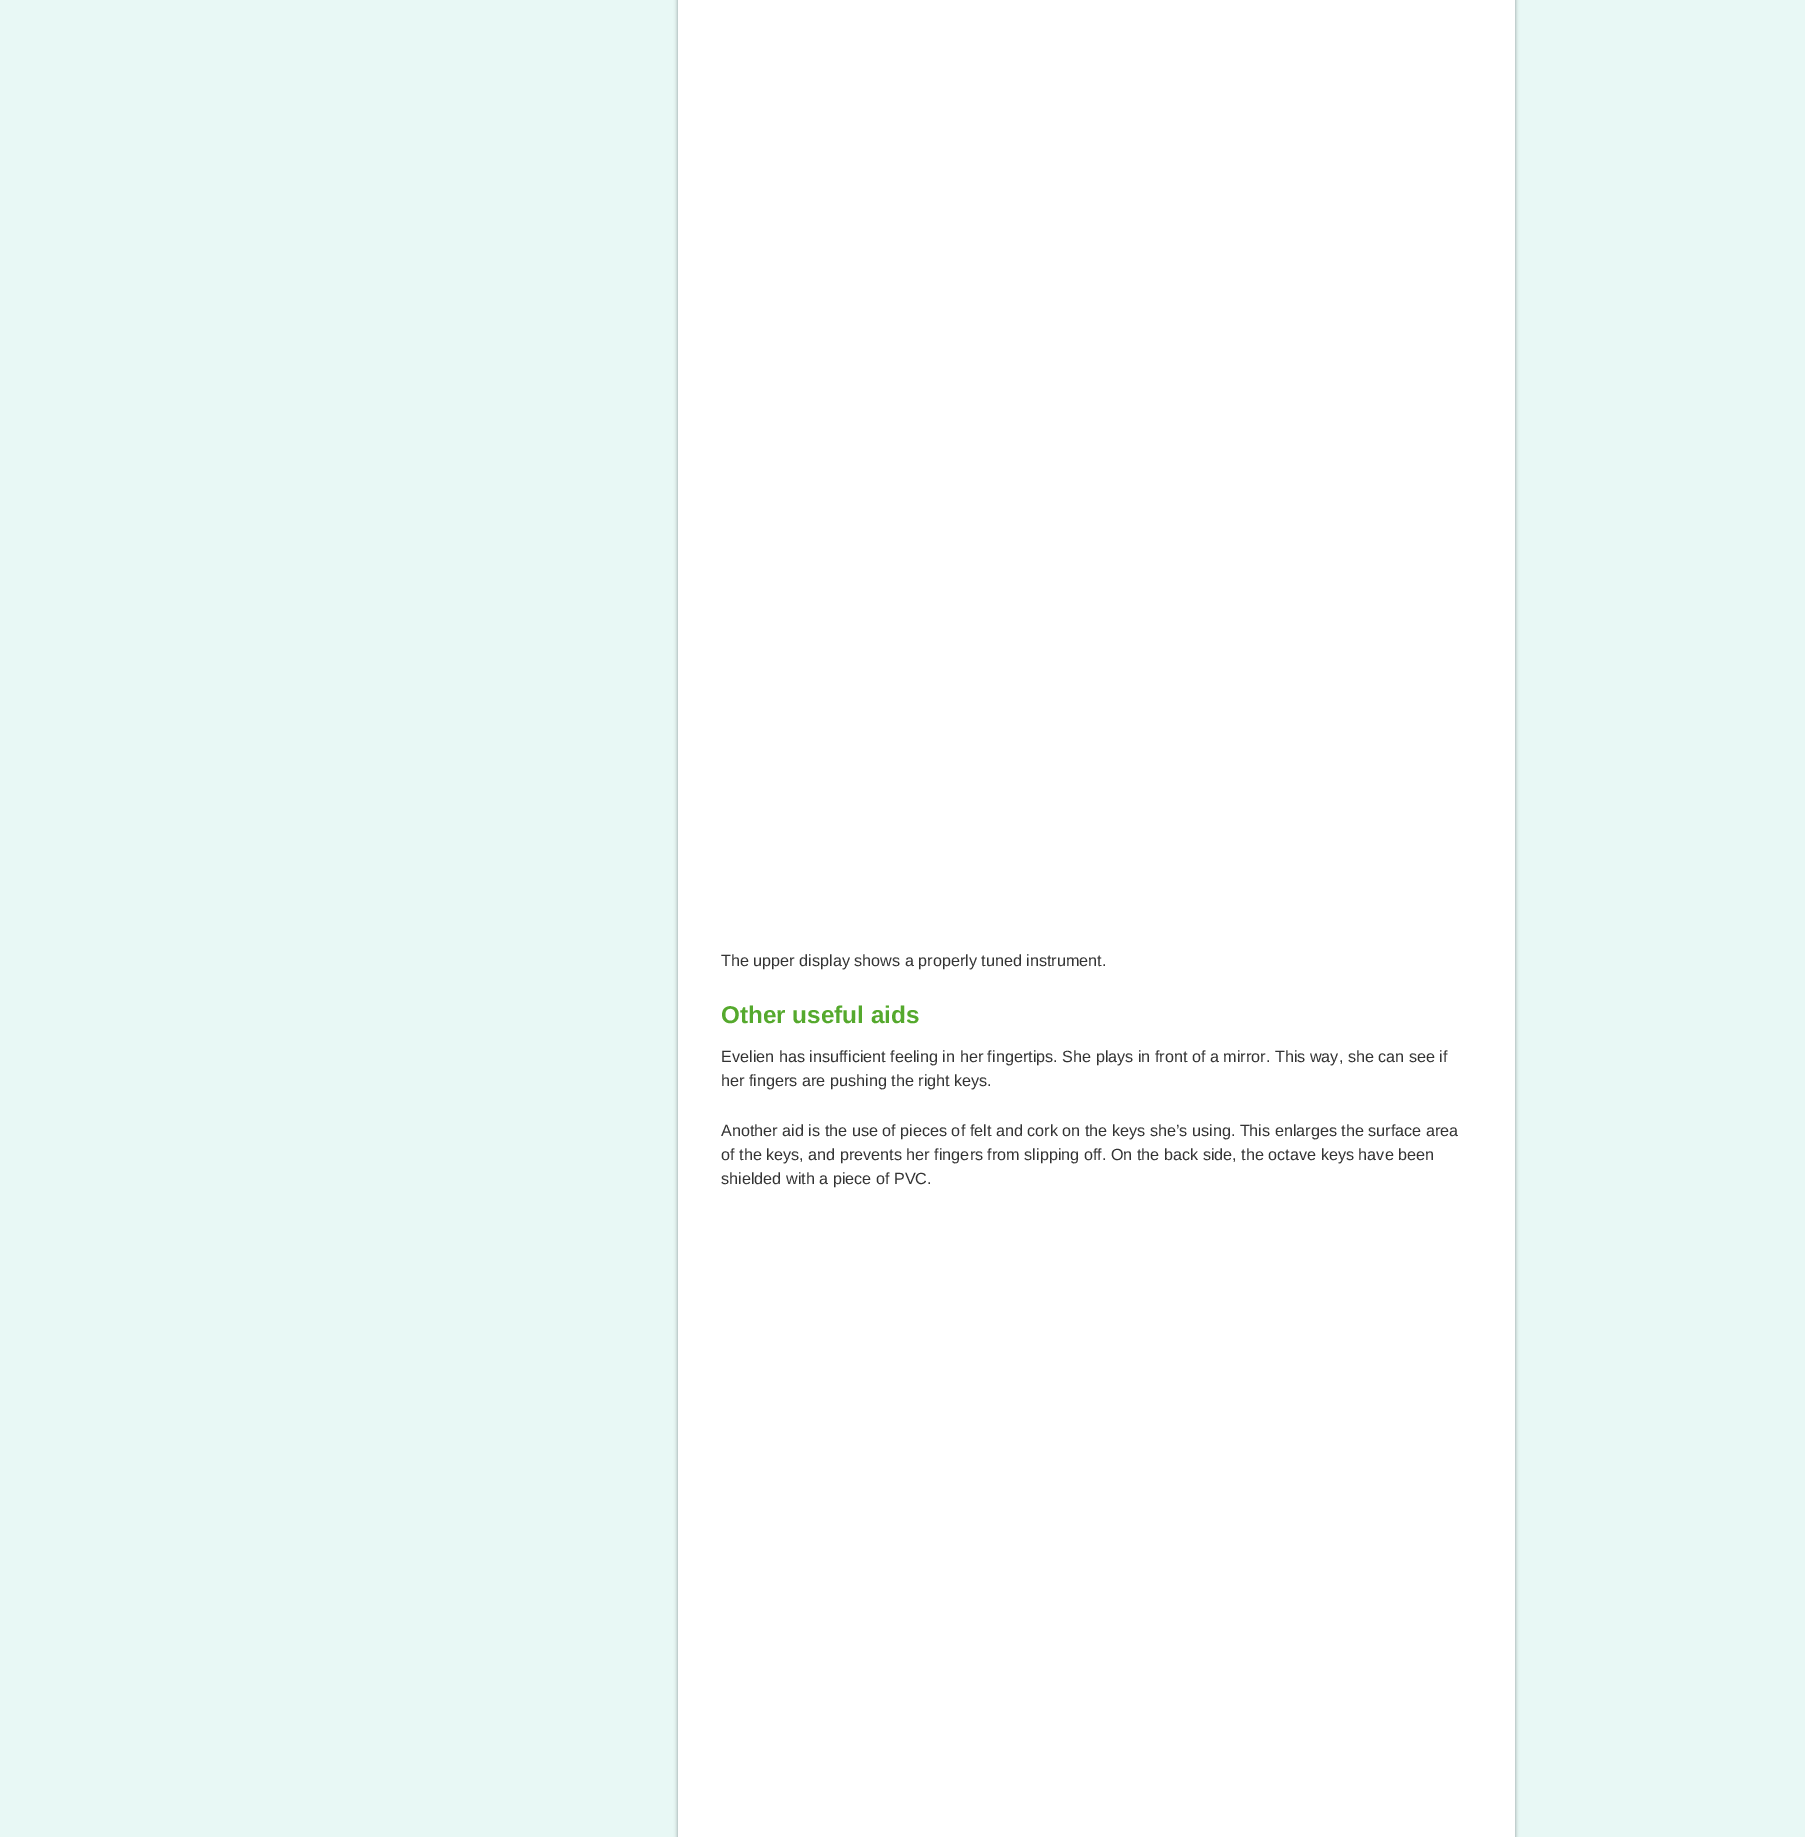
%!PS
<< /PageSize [1805 1837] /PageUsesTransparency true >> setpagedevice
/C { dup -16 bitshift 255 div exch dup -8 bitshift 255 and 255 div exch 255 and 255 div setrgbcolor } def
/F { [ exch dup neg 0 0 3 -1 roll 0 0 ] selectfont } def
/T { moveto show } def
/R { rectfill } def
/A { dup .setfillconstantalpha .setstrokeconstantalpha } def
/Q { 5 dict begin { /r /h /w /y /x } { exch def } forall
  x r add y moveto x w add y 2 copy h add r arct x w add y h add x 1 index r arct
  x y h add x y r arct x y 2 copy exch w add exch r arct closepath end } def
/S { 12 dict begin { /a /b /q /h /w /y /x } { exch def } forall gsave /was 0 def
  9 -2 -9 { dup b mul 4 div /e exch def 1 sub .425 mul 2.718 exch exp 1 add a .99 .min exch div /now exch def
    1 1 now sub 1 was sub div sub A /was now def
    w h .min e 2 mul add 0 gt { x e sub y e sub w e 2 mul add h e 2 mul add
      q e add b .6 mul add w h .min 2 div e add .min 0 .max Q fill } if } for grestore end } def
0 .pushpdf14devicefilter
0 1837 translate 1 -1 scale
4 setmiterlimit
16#E8F8F5 C
0 0 1805 1837 R
16#000000 C
678 -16 837 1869 10 2 .4 S
16#FFFFFF C
678 0 837 1837 R
/LiberationSans-Regular 16.2 F
16#333333 C
(The upper display shows a properly tuned instrument.) 721 966 T
/LiberationSans-Bold 24.25 F
16#55A92D C
(Other useful aids) 721 1023 T
/LiberationSans-Regular 16.2 F
16#333333 C
(Evelien has insufficient feeling in her fingertips. She plays in front of a mirror. This way, she can see if) 721 1062 T
(her fingers are pushing the right keys.) 721 1086 T
(Another aid is the use of pieces of felt and cork on the keys she’s using. This enlarges the surface area) 721 1136 T
(of the keys, and prevents her fingers from slipping off. On the back side, the octave keys have been) 721 1160 T
(shielded with a piece of PVC.) 721 1184 T
.poppdf14devicefilter showpage
